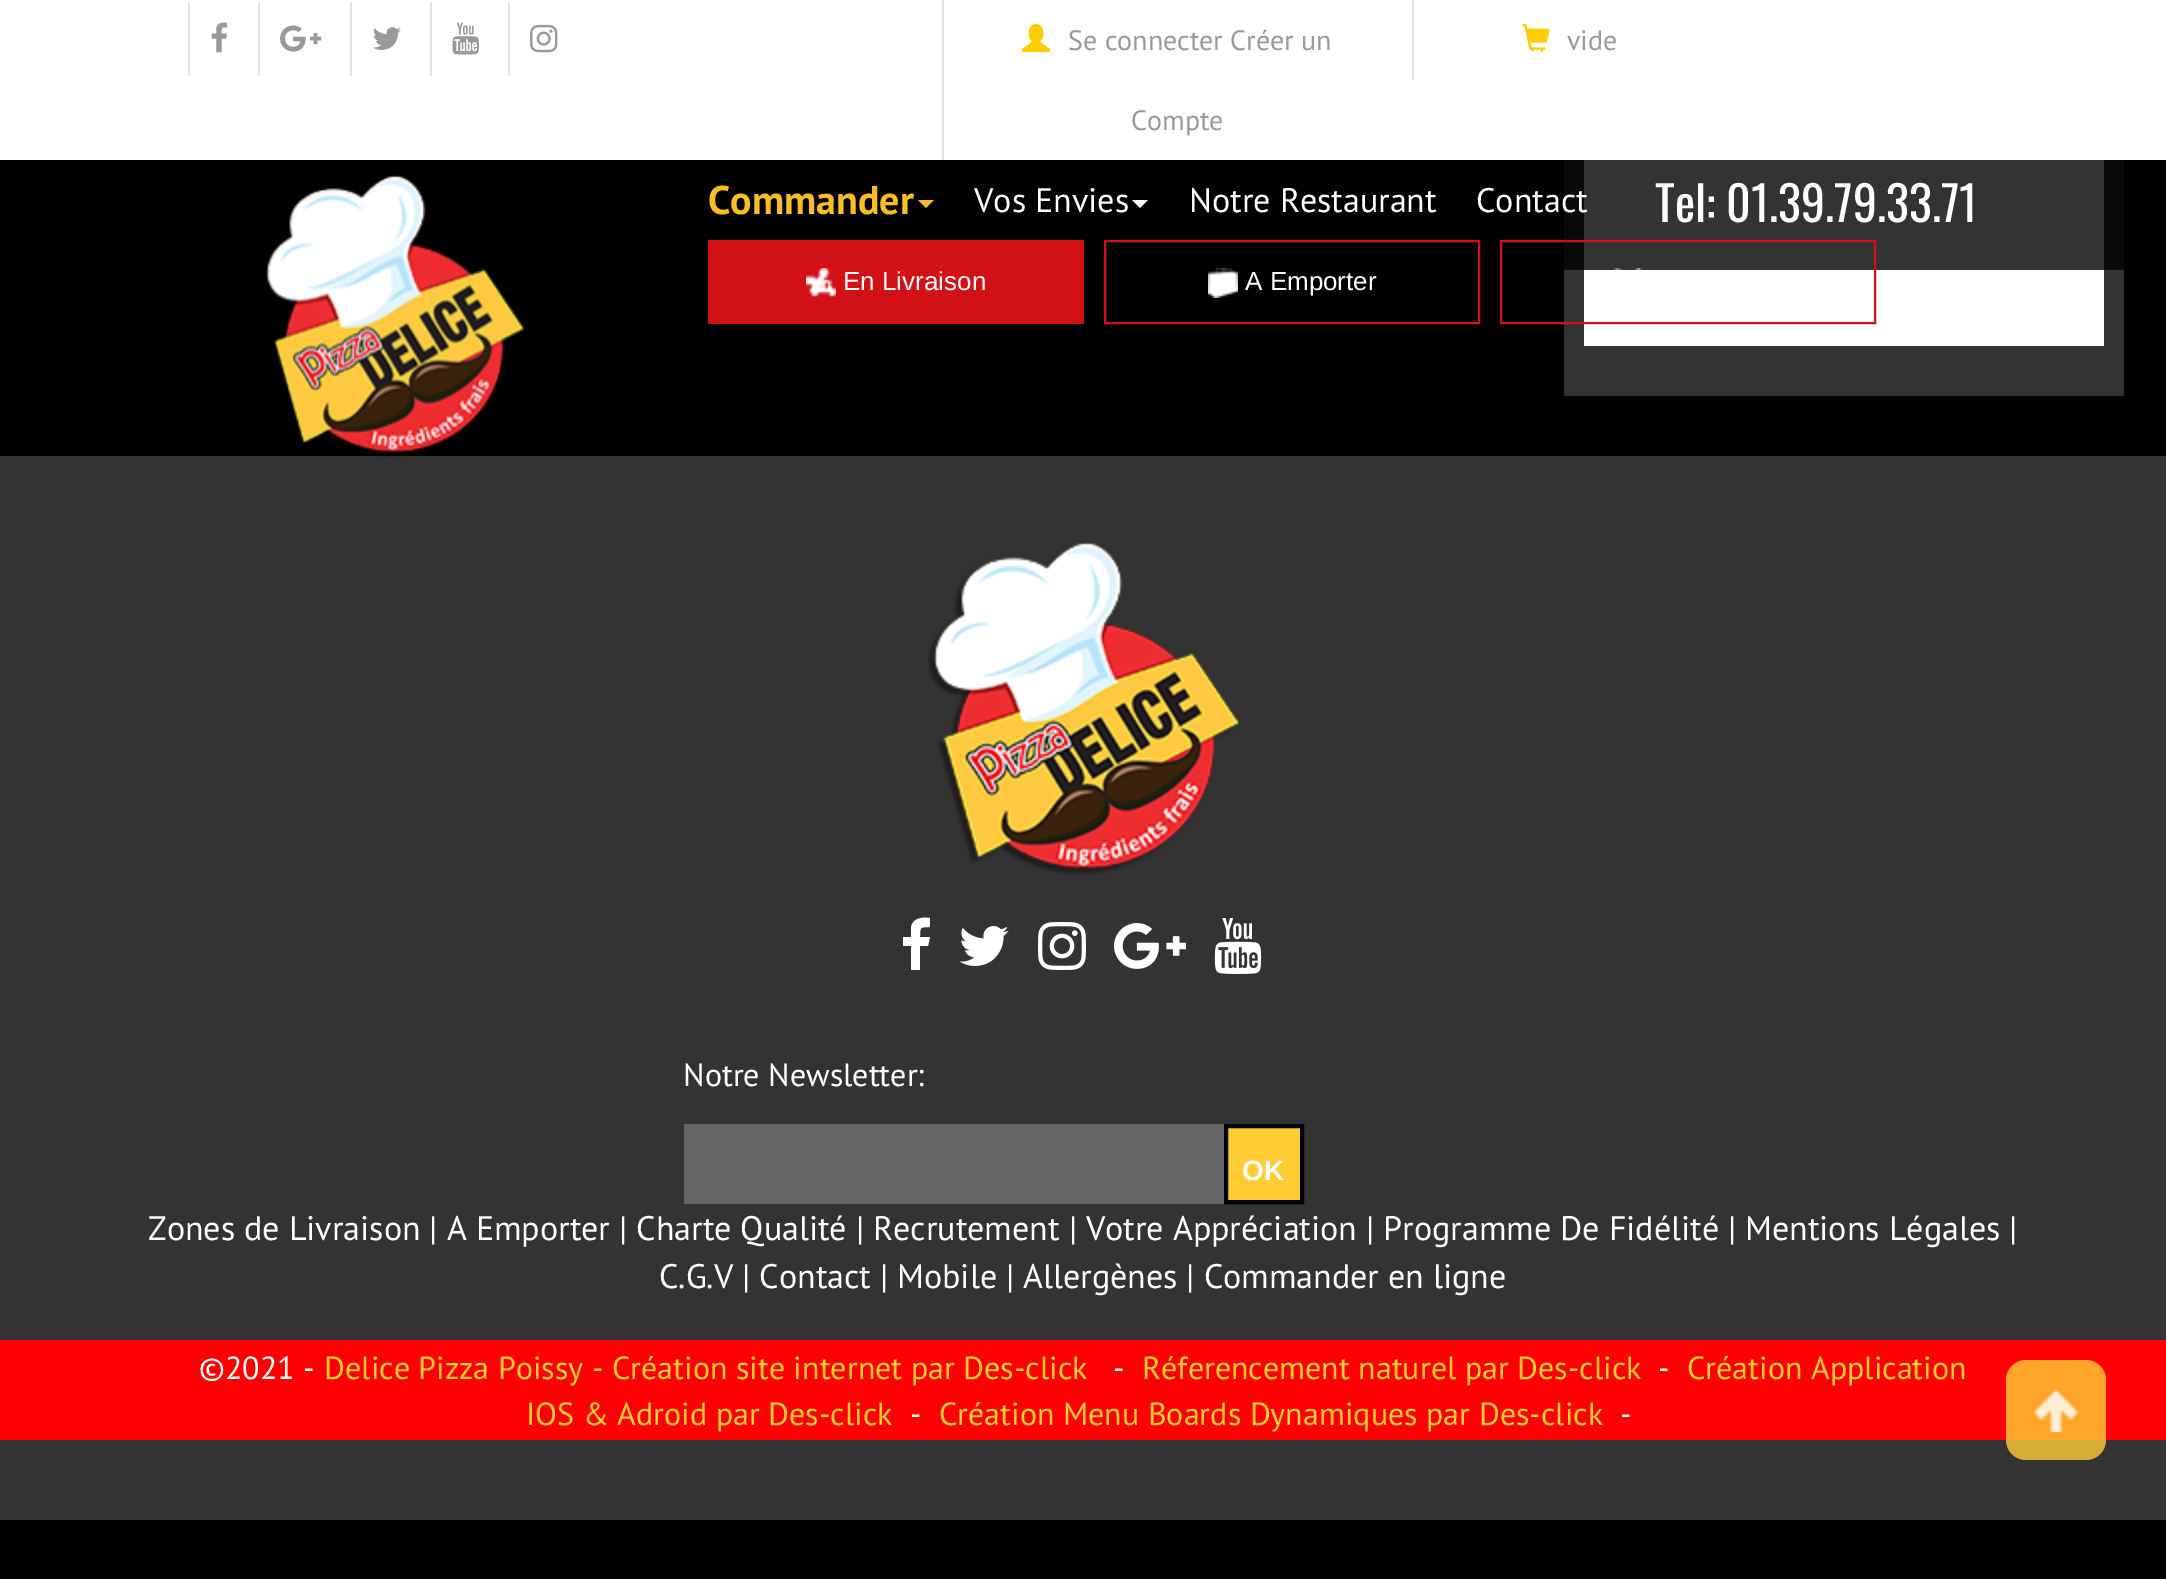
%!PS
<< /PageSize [2166 1579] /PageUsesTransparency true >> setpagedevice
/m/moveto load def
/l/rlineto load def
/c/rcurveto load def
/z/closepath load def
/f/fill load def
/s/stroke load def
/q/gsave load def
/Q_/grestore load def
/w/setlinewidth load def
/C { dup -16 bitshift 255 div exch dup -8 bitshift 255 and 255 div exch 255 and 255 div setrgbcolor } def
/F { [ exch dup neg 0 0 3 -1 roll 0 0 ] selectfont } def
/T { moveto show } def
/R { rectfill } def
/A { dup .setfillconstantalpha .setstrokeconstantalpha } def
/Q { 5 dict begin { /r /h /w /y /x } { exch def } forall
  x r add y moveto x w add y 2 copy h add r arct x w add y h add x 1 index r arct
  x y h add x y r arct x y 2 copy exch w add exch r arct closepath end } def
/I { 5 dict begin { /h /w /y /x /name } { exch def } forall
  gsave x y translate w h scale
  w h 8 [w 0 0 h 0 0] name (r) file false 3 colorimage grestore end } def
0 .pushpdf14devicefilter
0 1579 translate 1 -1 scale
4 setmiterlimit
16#000000 C
0 0 2166 1579 R
16#FFFFFF C
0 0 2166 160 R
16#E2E2E2 C
188 2 2 74 R
(1.rgb) 211 22 17 31 I
258 2 2 74 R
(2.rgb) 280 25 42 27 I
350 2 2 74 R
(3.rgb) 373 27 28 23 I
430 2 2 74 R
(4.rgb) 452 22 27 33 I
508 2 2 74 R
(5.rgb) 530 24 28 29 I
942 0 2 160 R
(6.rgb) 1022 24 28 28 I
/PTSans-Regular 28 F
16#999999 C
(Se connecter Créer un) 1068 50 T
(Compte) 1131 130 T
16#E2E2E2 C
1412 0 2 80 R
(7.rgb) 1522 24 28 28 I
16#999999 C
(vide) 1567 50 T
16#333333 C
0 456 2166 1064 R
(8.rgb) 266 175 259 282 I
/PTSans-Bold 40 F
16#F9BE22 C
(Commander) 708 214 T
918 200 m 16 0 l -8 8 l z f
/PTSans-Regular 34 F
16#FFFFFF C
(Vos Envies) 974 212 T
1132 200 m 16 0 l -8 8 l z f
(Notre Restaurant) 1189 212 T
16#0A0A0A C
1564 160 560 110 R
16#333333 C
1584 160 520 110 R
16#FFFFFF C
(Contact) 1476 212 T
/Oswald-Regular 48 F
(Tel: 01.39.79.33.71) 1655 222 T
16#D21117 C
708 240 376 84 R
(9.rgb) 806 268 30 29 I
/LiberationSans-Regular 26 F
16#FFFFFF C
(En Livraison) 843 290 T
16#D21117 C
2 w
1105 241 374 82 rectstroke
(10.rgb) 1208 268 30 30 I
16#FFFFFF C
(A Emporter) 1245 290 T
16#333333 C
1564 270 560 126 R
16#FFFFFF C
1584 270 520 76 R
16#D21117 C
1501 241 374 82 rectstroke
(11.rgb) 1613 268 31 2 I
(12.rgb) 928 542 312 333 I
16#FFFFFF C
930 918 m 0 9 l -10 0 -10 0 -10 10 c 10 0 l -2 9 l -8 0 l 0 24 l -9 0 l 0 -24 l -8 0 l 0 -9 l 8 0 l 0 -10 l 2 -9 11 -10 19 -9 c z f
(13.rgb) 959 926 50 40 I
(14.rgb) 1038 922 48 48 I
(15.rgb) 1114 923 72 46 I
(16.rgb) 1214 918 48 56 I
/PTSans-Regular 32 F
(Notre Newsletter:) 683 1086 T
16#666666 C
684 1124 540 80 R
16#FFCC33 C
1226 1126 m 76 0 l 0 76 l -76 0 l z q f Q_
16#000000 C
4 w
s
/LiberationSans-Bold 28 F
16#FFFFFF C
(OK) 1242 1180 T
/PTSans-Regular 34 F
(Zones de Livraison | A Emporter | Charte Qualité | Recrutement | Votre Appréciation | Programme De Fidélité | Mentions Légales |) 148 1240 T
(C.G.V | Contact | Mobile | Allergènes | Commander en ligne) 659 1288 T
16#FF0000 C
0 1340 2166 100 R
/PTSans-Regular 32 F
16#FFFFFF C
(©2021 -) 199 1379 T
16#FFCC33 C
(Delice Pizza Poissy - Création site internet par Des-click) 324 1379 T
16#FFFFFF C
(-) 1113 1379 T
16#FFCC33 C
(Réferencement naturel par Des-click) 1142 1379 T
16#FFFFFF C
(-) 1658 1379 T
16#FFCC33 C
(Création Application) 1687 1379 T
(IOS & Adroid par Des-click) 526 1425 T
16#FFFFFF C
(-) 910 1425 T
16#FFCC33 C
(Création Menu Boards Dynamiques par Des-click) 939 1425 T
16#FFFFFF C
(-) 1620 1425 T
0.8 A
16#FFCC33 C
2006 1360 100 100 20 Q f
1 A
(17.rgb) 2033 1389 46 43 I
.poppdf14devicefilter showpage
